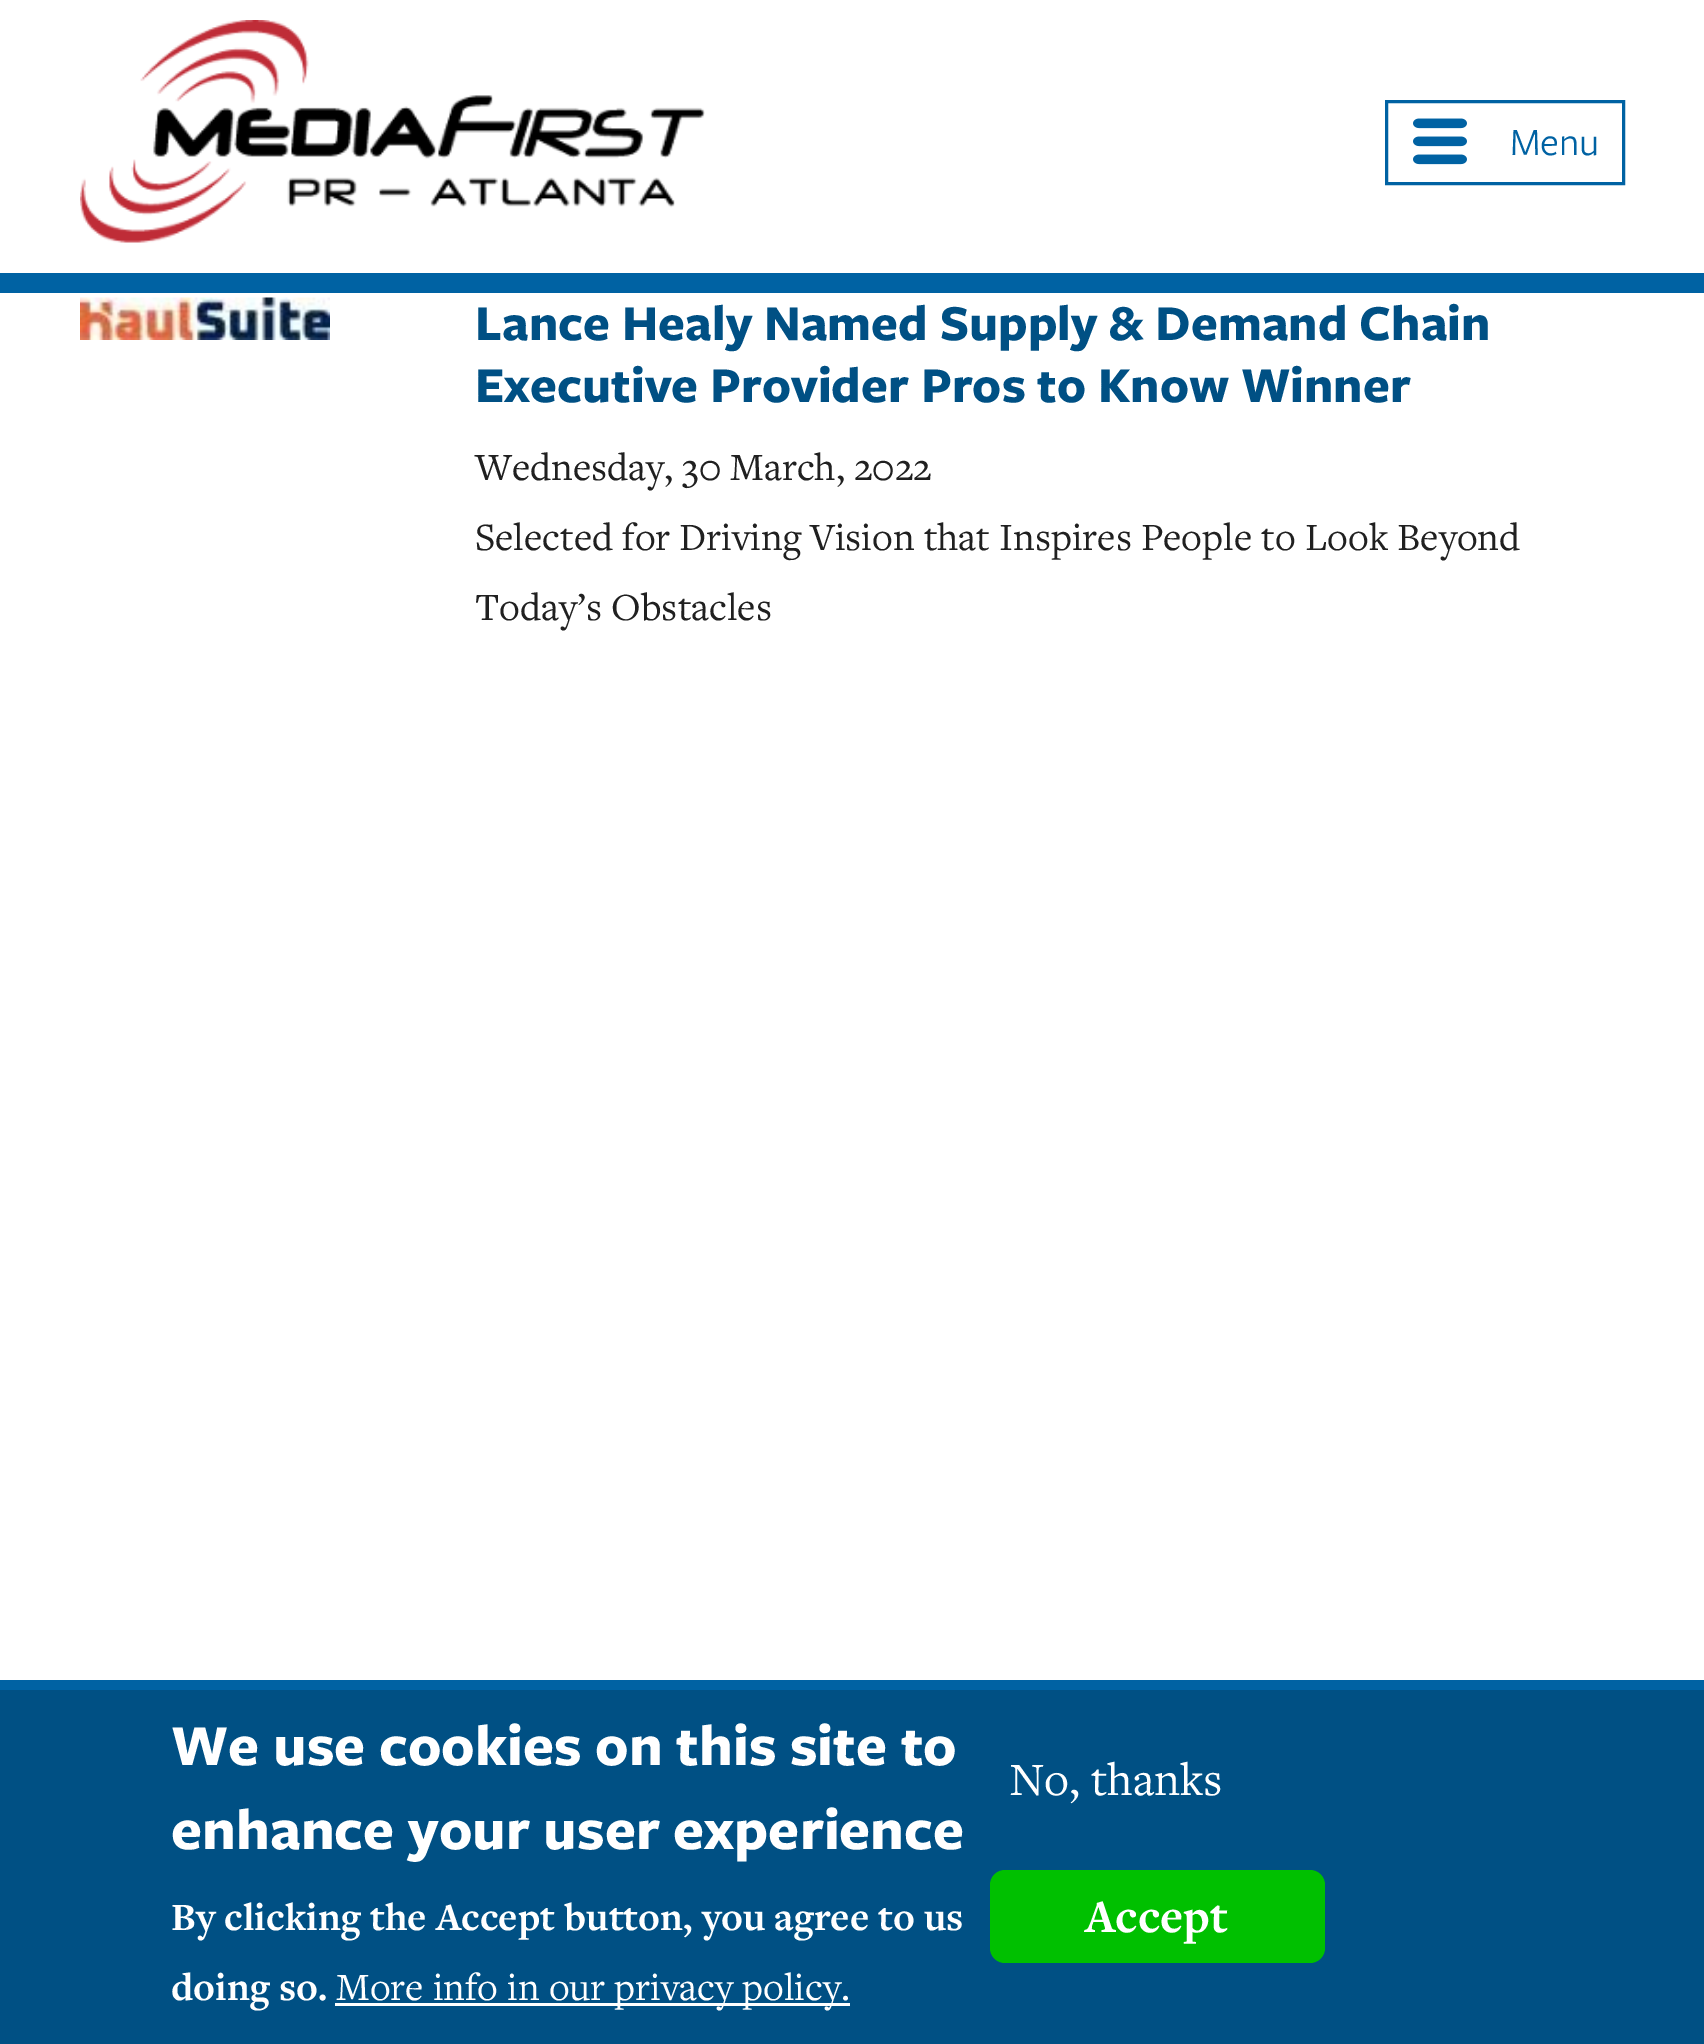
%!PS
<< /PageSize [1704 2044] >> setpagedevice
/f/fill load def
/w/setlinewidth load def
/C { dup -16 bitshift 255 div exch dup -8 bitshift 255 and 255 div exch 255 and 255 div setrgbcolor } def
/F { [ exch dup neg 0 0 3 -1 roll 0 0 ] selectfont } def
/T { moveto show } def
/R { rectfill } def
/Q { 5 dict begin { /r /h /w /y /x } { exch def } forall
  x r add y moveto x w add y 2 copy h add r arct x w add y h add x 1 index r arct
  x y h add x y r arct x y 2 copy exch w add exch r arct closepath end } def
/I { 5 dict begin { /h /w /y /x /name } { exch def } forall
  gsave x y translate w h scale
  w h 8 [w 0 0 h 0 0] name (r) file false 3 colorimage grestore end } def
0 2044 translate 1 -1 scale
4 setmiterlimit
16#FFFFFF C
0 0 1704 2044 R
16#0062A3 C
0 273 1704 20 R
(1.rgb) 80 20 625 223 I
3 w
1386.5 101.5 237 82 rectstroke
(2.rgb) 1413 118 54 47 I
/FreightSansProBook-Regular 40 F
(Menu) 1510 155 T
(3.rgb) 80 297 250 43 I
/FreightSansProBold-Bold 52 F
16#005084 C
(Lance Healy Named Supply & Demand Chain) 475 340 T
(Executive Provider Pros to Know Winner) 475 402 T
/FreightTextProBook-Regular 40 F
16#202020 C
(Wednesday, 30 March, 2022) 475 480 T
(Selected for Driving Vision that Inspires People to Look Beyond) 475 550 T
(Today’s Obstacles) 475 620 T
16#0062A3 C
0 1680 1704 10 R
16#005084 C
0 1690 1704 354 R
/FreightSansProBold-Bold 60 F
16#FFFFFF C
(We use cookies on this site to) 171 1765 T
(enhance your user experience) 171 1849 T
/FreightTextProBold-Bold 40 F
(By clicking the Accept button, you agree to us) 171 1930 T
(doing so.) 171 2000 T
335 2003 515 3 R
/FreightTextProBook-Regular 40 F
(More info in our privacy policy.) 336 2000 T
/FreightTextProBook-Regular 48 F
(No, thanks) 1009 1795 T
16#00C000 C
990 1870 335 93 15 Q f
/FreightTextProBold-Bold 48 F
16#FFFFFF C
(Accept) 1085 1932 T
showpage
